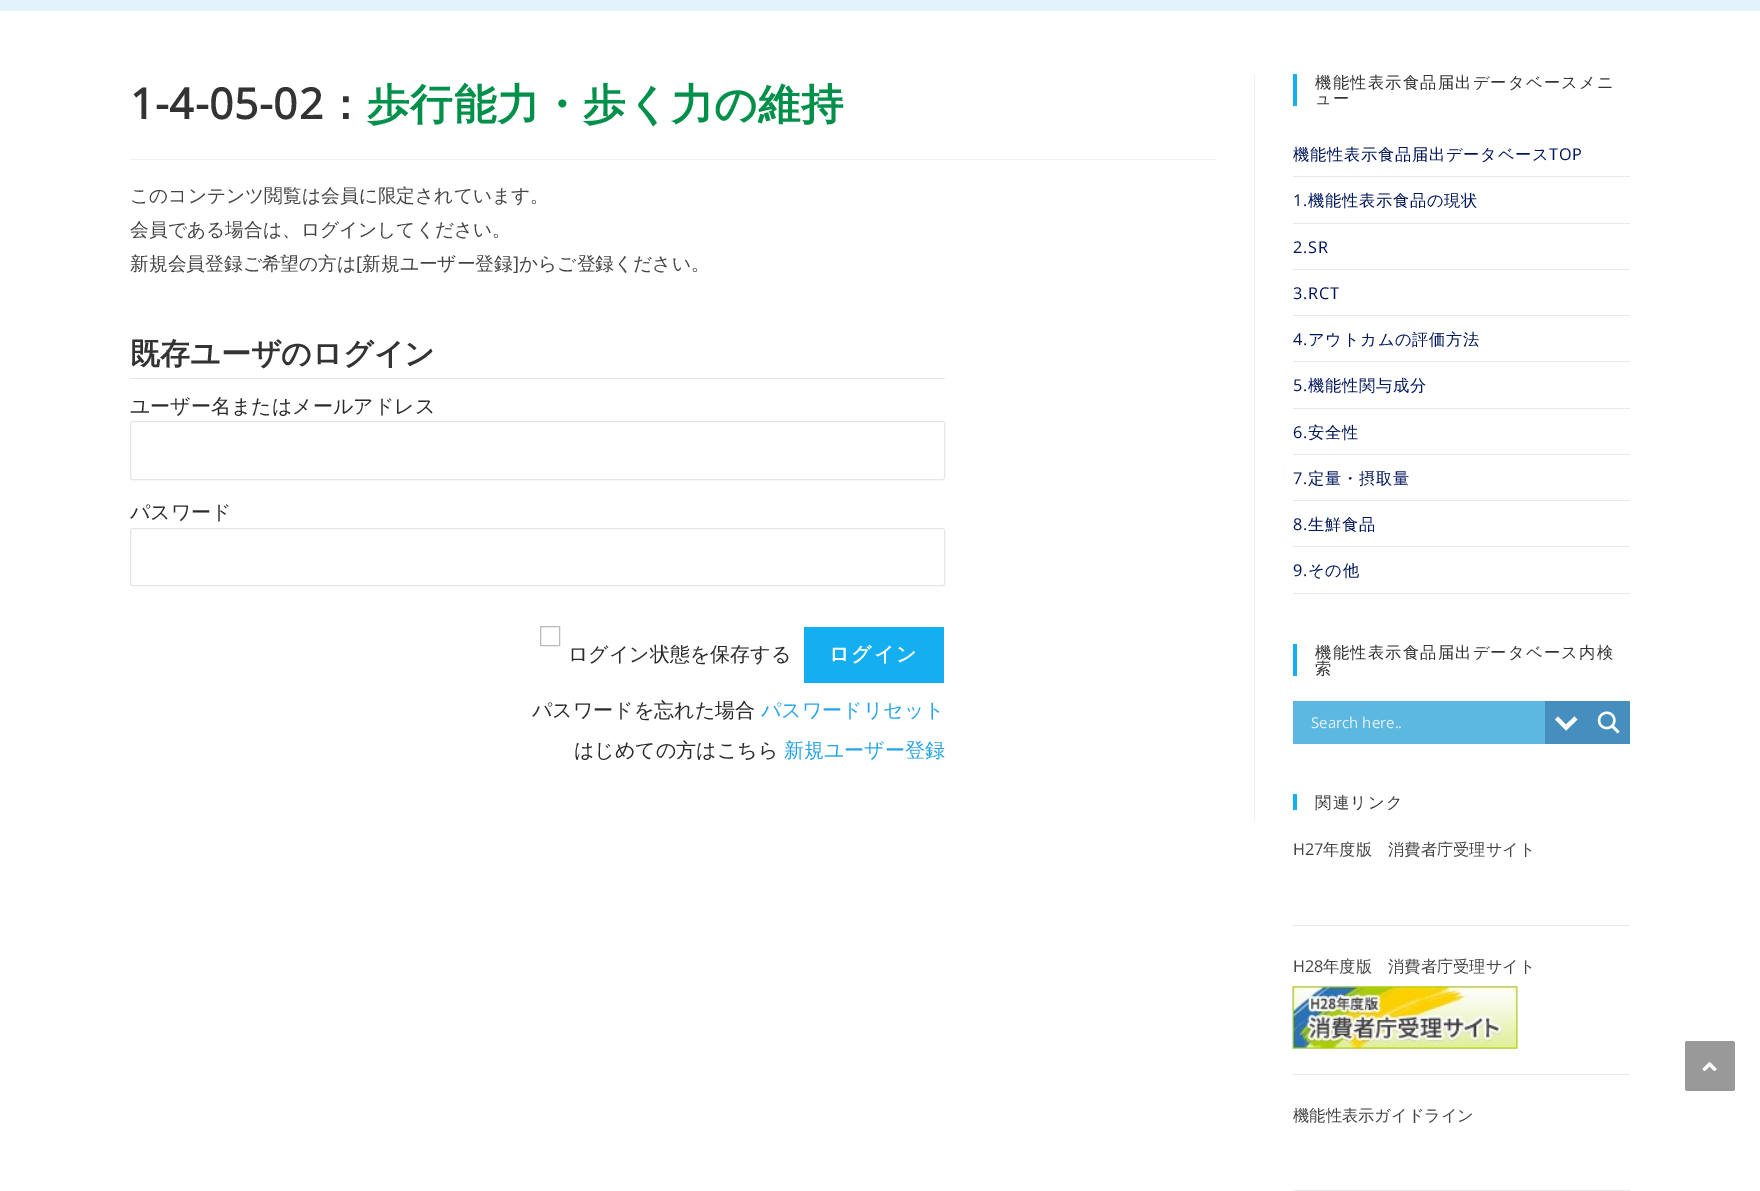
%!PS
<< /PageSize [1760 1191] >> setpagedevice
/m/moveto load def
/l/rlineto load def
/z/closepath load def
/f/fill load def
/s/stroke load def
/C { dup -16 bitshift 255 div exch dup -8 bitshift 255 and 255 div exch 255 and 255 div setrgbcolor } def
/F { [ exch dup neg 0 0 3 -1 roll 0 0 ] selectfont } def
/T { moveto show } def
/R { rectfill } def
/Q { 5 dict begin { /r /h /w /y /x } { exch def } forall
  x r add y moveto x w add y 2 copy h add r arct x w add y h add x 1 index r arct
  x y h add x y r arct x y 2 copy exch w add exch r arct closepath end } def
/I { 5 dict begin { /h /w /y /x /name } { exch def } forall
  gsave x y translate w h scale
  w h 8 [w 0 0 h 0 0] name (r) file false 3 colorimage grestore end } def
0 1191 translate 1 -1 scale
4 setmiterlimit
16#FFFFFF C
0 0 1760 1191 R
16#E3F3FC C
0 0 1760 11 R
16#F1F1F1 C
1254 74 1 747 R
130 159 1086 1 R
/OpenSans-Bold 42.5 F
16#333333 C
130 119 m .75 0 (1-4-05-02) ashow
/WenQuanYiZenHei-Bold 42.5 F
324 119 m .75 0 (：) ashow
16#00904A C
367 119 m .75 0 (歩行能力・歩く力の維持) ashow
/WenQuanYiZenHei-Medium 18.75 F
16#444444 C
(このコンテンツ閲覧は会員に限定されています。) 130 202 T
(会員である場合は、ログインしてください。) 130 236 T
(新規会員登録ご希望の方は) 130 270 T
/OpenSans-Regular 18.75 F
([) 356 270 T
/WenQuanYiZenHei-Medium 18.75 F
(新規ユーザー登録) 362 270 T
/OpenSans-Regular 18.75 F
(]) 513 270 T
/WenQuanYiZenHei-Medium 18.75 F
(からご登録ください。) 519 270 T
16#E5E5E5 C
130 378 815 1 R
/WenQuanYiZenHei-Bold 30 F
16#333333 C
(既存ユーザのログイン) 130 364 T
/WenQuanYiZenHei-Medium 20 F
16#2B2B2B C
(ユーザー名またはメールアドレス) 130 413 T
16#E6E6E6 C
130.5 421.5 814 58 2 Q s
16#2B2B2B C
(パスワード) 130 519 T
16#E6E6E6 C
130.5 528.5 814 57 2 Q s
16#BBBBBB C
540.5 626.5 19 19 rectstroke
16#2B2B2B C
(ログイン状態を保存する) 568 661 T
16#13AFF0 C
804 627 140 56 R
/WenQuanYiZenHei-Bold 20 F
16#FFFFFF C
829 661 m 2 0 (ログイン) ashow
/WenQuanYiZenHei-Medium 20 F
16#2B2B2B C
(パスワードを忘れた場合) 532 717 T
16#24A4E8 C
(パスワードリセット) 761 717 T
16#2B2B2B C
(はじめての方はこちら) 574 757 T
16#24A4E8 C
(新規ユーザー登録) 784 757 T
16#13AFF0 C
1293 74 4 32 R
/WenQuanYiZenHei-Medium 16.25 F
16#333333 C
1315 88 m 1.25 0 (機能性表示食品届出データベースメニ) ashow
1315 104 m 1.25 0 (ュー) ashow
16#E9E9E9 C
1293 176 337 1 R
16#00165C C
1293 160 m .75 0 (機能性表示食品届出データベース) ashow
/OpenSans-Regular 16.25 F
1549 160 m .75 0 (TOP) ashow
16#E9E9E9 C
1293 223 337 1 R
16#00165C C
1293 206 m .75 0 (1.) ashow
/WenQuanYiZenHei-Medium 16.25 F
1308 206 m .75 0 (機能性表示食品の現状) ashow
16#E9E9E9 C
1293 269 337 1 R
/OpenSans-Regular 16.25 F
16#00165C C
1293 253 m .75 0 (2.SR) ashow
16#E9E9E9 C
1293 315 337 1 R
16#00165C C
1293 299 m .75 0 (3.RCT) ashow
16#E9E9E9 C
1293 361 337 1 R
16#00165C C
1293 345 m .75 0 (4.) ashow
/WenQuanYiZenHei-Medium 16.25 F
1308 345 m .75 0 (アウトカムの評価方法) ashow
16#E9E9E9 C
1293 408 337 1 R
/OpenSans-Regular 16.25 F
16#00165C C
1293 391 m .75 0 (5.) ashow
/WenQuanYiZenHei-Medium 16.25 F
1308 391 m .75 0 (機能性関与成分) ashow
16#E9E9E9 C
1293 454 337 1 R
/OpenSans-Regular 16.25 F
16#00165C C
1293 438 m .75 0 (6.) ashow
/WenQuanYiZenHei-Medium 16.25 F
1308 438 m .75 0 (安全性) ashow
16#E9E9E9 C
1293 500 337 1 R
/OpenSans-Regular 16.25 F
16#00165C C
1293 484 m .75 0 (7.) ashow
/WenQuanYiZenHei-Medium 16.25 F
1308 484 m .75 0 (定量・摂取量) ashow
16#E9E9E9 C
1293 546 337 1 R
/OpenSans-Regular 16.25 F
16#00165C C
1293 530 m .75 0 (8.) ashow
/WenQuanYiZenHei-Medium 16.25 F
1308 530 m .75 0 (生鮮食品) ashow
16#E9E9E9 C
1293 593 337 1 R
/OpenSans-Regular 16.25 F
16#00165C C
1293 576 m .75 0 (9.) ashow
/WenQuanYiZenHei-Medium 16.25 F
1308 576 m .75 0 (その他) ashow
16#13AFF0 C
1293 644 4 32 R
16#333333 C
1315 658 m 1.25 0 (機能性表示食品届出データベース内検) ashow
1315 674 m 1.25 0 (索) ashow
16#5CB7E1 C
1293 701 252 43 R
16#468EBE C
1545 701 85 43 R
16#FFFFFF C
1574.5 716.5 m 3 3 l -11.5 11 l -11 -11 l 3 -3 l 8 8 l z f
/OpenSans-Regular 15 F
16#E7F4FB C
(Search here..) 1311 728 T
(1.rgb) 1597 711 23 23 I
16#13AFF0 C
1293 794 4 16 R
/WenQuanYiZenHei-Medium 16.25 F
16#333333 C
1315 808 m 1.25 0 (関連リンク) ashow
/OpenSans-Regular 16.25 F
16#444444 C
(H27) 1293 855 T
/WenQuanYiZenHei-Medium 16.25 F
(年度版　消費者庁受理サイト) 1323 855 T
16#E9E9E9 C
1293 925 337 1 R
/OpenSans-Regular 16.25 F
16#444444 C
(H28) 1293 972 T
/WenQuanYiZenHei-Medium 16.25 F
(年度版　消費者庁受理サイト) 1323 972 T
(2.rgb) 1292 986 226 63 I
16#E9E9E9 C
1293 1074 337 1 R
16#444444 C
(機能性表示ガイドライン) 1293 1121 T
16#E9E9E9 C
1293 1190 337 1 R
16#999999 C
1685 1041 50 50 2.5 Q f
(3.rgb) 1702 1062 15 9 I
showpage
